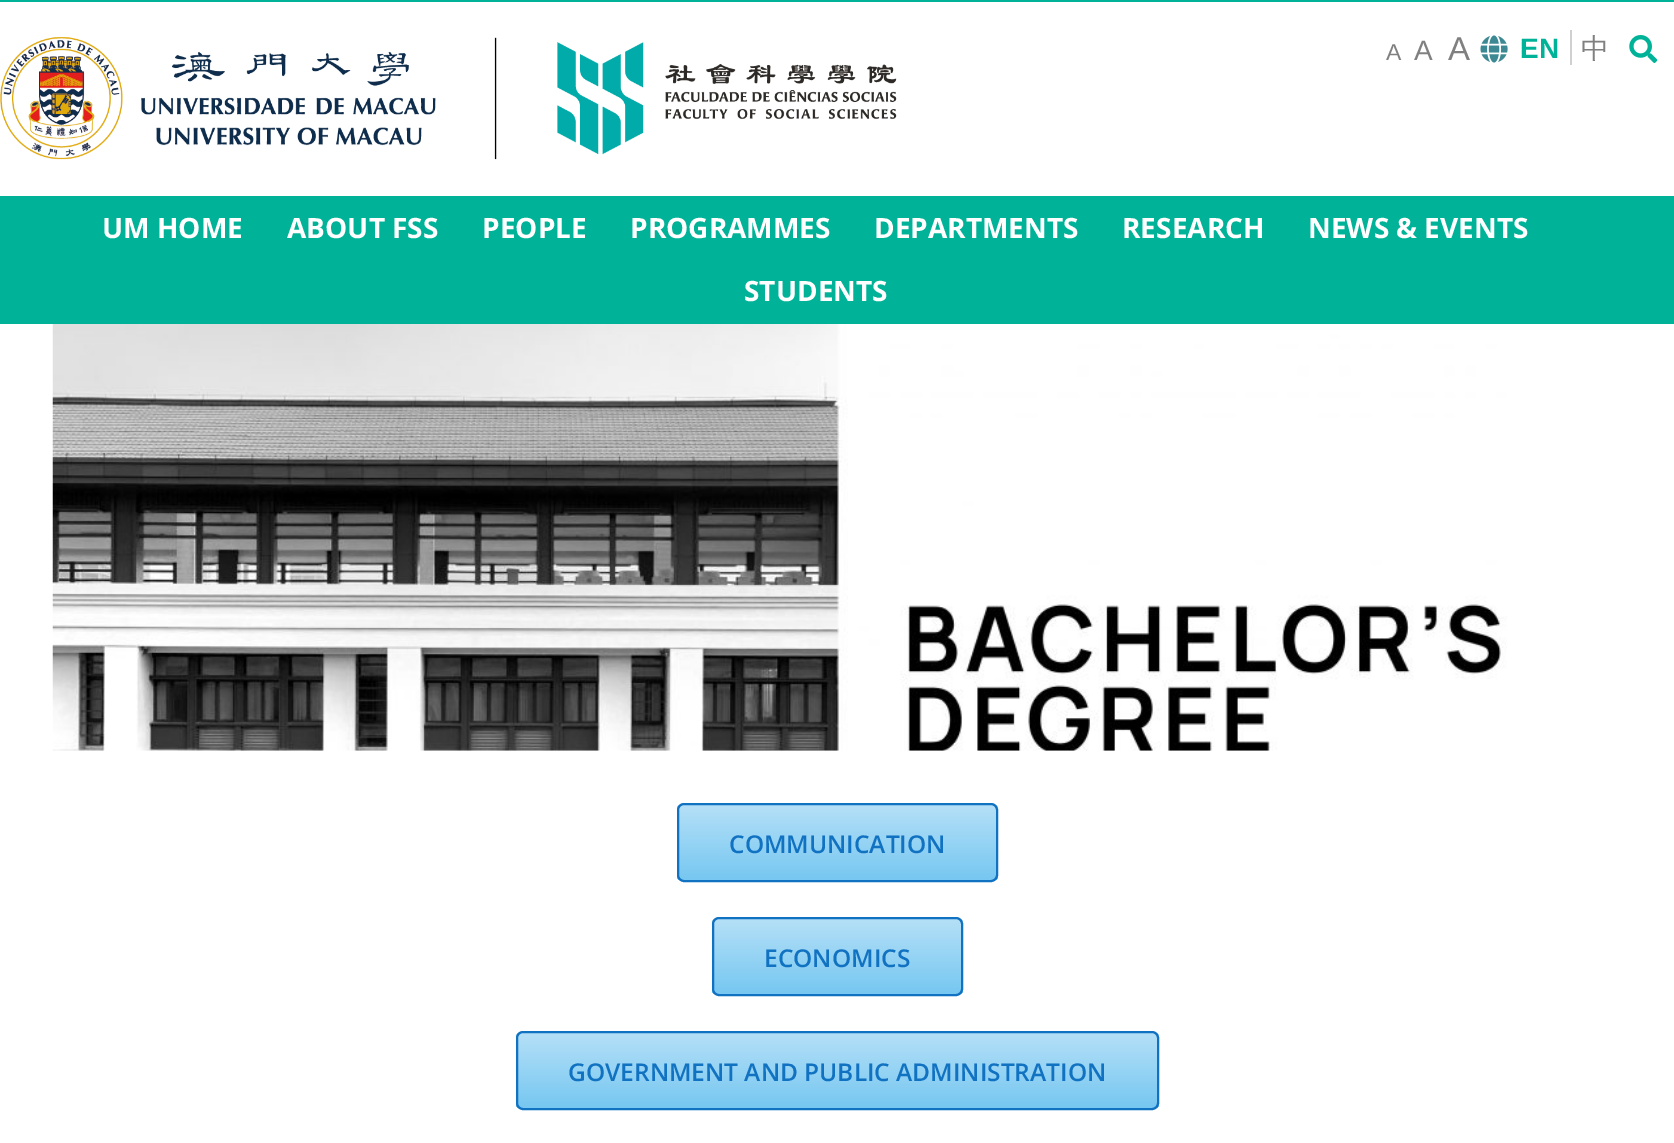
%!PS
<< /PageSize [1674 1143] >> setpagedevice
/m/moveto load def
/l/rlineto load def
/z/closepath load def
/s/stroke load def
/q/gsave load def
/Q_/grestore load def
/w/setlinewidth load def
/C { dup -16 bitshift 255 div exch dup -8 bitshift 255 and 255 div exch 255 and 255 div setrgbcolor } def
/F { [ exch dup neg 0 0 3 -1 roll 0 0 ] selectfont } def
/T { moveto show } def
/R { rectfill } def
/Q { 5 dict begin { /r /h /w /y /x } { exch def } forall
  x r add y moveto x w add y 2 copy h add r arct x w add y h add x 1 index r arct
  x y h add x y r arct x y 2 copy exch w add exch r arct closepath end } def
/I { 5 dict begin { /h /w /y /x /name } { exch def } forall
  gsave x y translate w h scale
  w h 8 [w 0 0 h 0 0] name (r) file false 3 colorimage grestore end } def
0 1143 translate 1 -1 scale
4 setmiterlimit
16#FFFFFF C
0 0 1674 1143 R
16#00B398 C
0 0 1674 2 R
(1.rgb) 0 37 897 123 I
/LiberationSans-Regular 23 F
16#808080 C
(A) 1386 60 T
/LiberationSans-Regular 28 F
(A) 1414 60 T
/LiberationSans-Regular 33 F
(A) 1448 60 T
(2.rgb) 1480 35 28 28 I
16#D0D0D0 C
1570 30 2 35 R
/LiberationSans-Bold 28 F
16#00B398 C
(EN) 1520 58 T
/WenQuanYiZenHei-Medium 28 F
16#808080 C
(中) 1581 58 T
(3.rgb) 1629 35 29 28 I
16#00B398 C
0 196 1674 128 R
/OpenSans-Bold 28 F
16#FFFFFF C
(UM HOME) 102 238 T
(ABOUT FSS) 287 238 T
(PEOPLE) 482 238 T
(PROGRAMMES) 630 238 T
(DEPARTMENTS) 874 238 T
(RESEARCH) 1122 238 T
(NEWS & EVENTS) 1308 238 T
(STUDENTS) 744 301 T
(4.rgb) 52 324 1455 427 I
q
677 803 321 79 7 Q clip newpath
q 677 805 m 321 0 l 0 75 l -321 0 l z clip newpath
<< /ShadingType 2 /ColorSpace /DeviceRGB /Coords [837 880 837 805] /Extend [true true] /Function << /FunctionType 2 /Domain [0 1] /C0 [.463 .78 .945] /C1 [.71 .878 .969] /N 1 >> >> shfill Q_
Q_
16#1172C1 C
2 w
678 804 319 77 6 Q s
/OpenSans-SemiBold 24.5 F
(COMMUNICATION) 729 853 T
q
712 917 251 79 7 Q clip newpath
q 712 919 m 251 0 l 0 75 l -251 0 l z clip newpath
<< /ShadingType 2 /ColorSpace /DeviceRGB /Coords [837 994 837 919] /Extend [true true] /Function << /FunctionType 2 /Domain [0 1] /C0 [.463 .78 .945] /C1 [.71 .878 .969] /N 1 >> >> shfill Q_
Q_
713 918 249 77 6 Q s
(ECONOMICS) 764 967 T
q
516 1031 643 79 7 Q clip newpath
q 516 1033 m 643 0 l 0 75 l -643 0 l z clip newpath
<< /ShadingType 2 /ColorSpace /DeviceRGB /Coords [837 1108 837 1033] /Extend [true true] /Function << /FunctionType 2 /Domain [0 1] /C0 [.463 .78 .945] /C1 [.71 .878 .969] /N 1 >> >> shfill Q_
Q_
517 1032 641 77 6 Q s
(GOVERNMENT AND PUBLIC ADMINISTRATION) 568 1081 T
showpage
